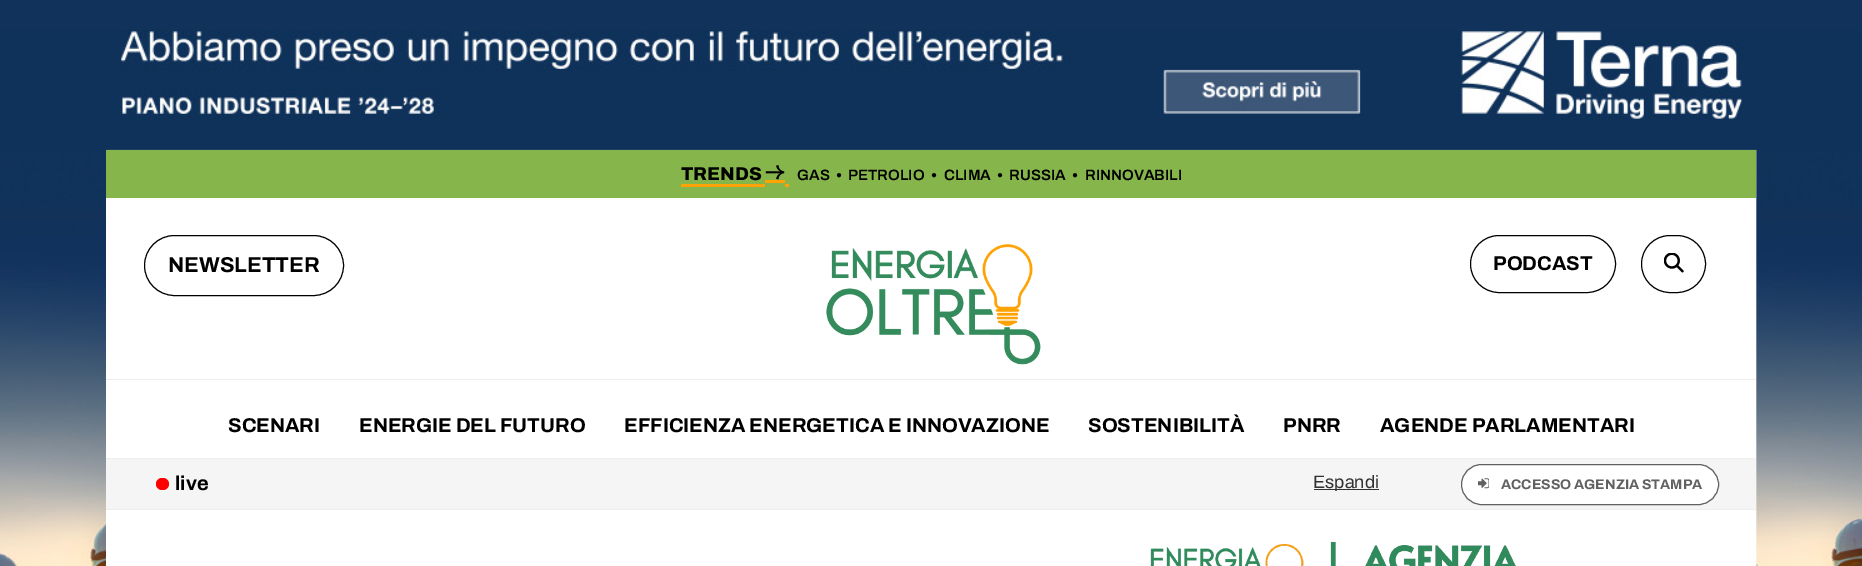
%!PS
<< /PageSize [1862 566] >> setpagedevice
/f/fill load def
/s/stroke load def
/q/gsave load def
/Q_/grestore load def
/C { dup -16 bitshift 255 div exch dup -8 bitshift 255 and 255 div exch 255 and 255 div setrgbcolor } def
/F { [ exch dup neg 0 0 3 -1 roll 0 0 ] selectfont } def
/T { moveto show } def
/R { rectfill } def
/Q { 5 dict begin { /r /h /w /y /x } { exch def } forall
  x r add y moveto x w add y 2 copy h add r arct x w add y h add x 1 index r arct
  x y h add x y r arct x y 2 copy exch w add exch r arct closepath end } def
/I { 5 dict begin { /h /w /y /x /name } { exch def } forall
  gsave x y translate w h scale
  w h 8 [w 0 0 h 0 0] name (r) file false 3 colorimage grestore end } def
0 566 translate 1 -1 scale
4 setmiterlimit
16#11325B C
0 0 1862 566 R
(1.rgb) 0 30 1862 536 I
16#FFFFFF C
106 198 1650 368 R
16#85B54B C
106 150 1650 48 R
/Archivo-ExtraBold 18.5 F
16#000000 C
(TRENDS) 681 180 T
16#FFA305 C
681 184 84 3 R
765 180 20 3 R
785 184 4 3 R
(2.rgb) 765 165 20 15 I
/Archivo-SemiBold 15 F
16#000000 C
(GAS) 797 180 T
/LiberationSerif-Bold 10 F
(●) 836 178 T
/Archivo-SemiBold 15 F
(PETROLIO) 848 180 T
/LiberationSerif-Bold 10 F
(●) 931 178 T
/Archivo-SemiBold 15 F
(CLIMA) 944 180 T
/LiberationSerif-Bold 10 F
(●) 997 178 T
/Archivo-SemiBold 15 F
(RUSSIA) 1009 180 T
/LiberationSerif-Bold 10 F
(●) 1072 178 T
/Archivo-SemiBold 15 F
(RINNOVABILI) 1085 180 T
144.5 235.5 199 60 30 Q s
/Archivo-Bold 21.5 F
(NEWSLETTER) 168 272 T
(3.rgb) 826 244 215 121 I
1470.5 235.5 145 57 28.5 Q s
/Archivo-Bold 20 F
(PODCAST) 1493 270 T
1641.5 235.5 64 57 28.5 Q s
(4.rgb) 1664 253 20 20 I
16#EEEEEE C
106 379 1650 1 R
106 458 1650 1 R
16#000000 C
(SCENARI) 228 432 T
(ENERGIE DEL FUTURO) 359 432 T
(EFFICIENZA ENERGETICA E INNOVAZIONE) 624 432 T
(SOSTENIBILITÀ) 1088 432 T
(PNRR) 1283 432 T
(AGENDE PARLAMENTARI) 1380 432 T
16#F5F5F5 C
106 459 1650 50 R
16#FF0000 C
156 478 13 12 6 Q f
16#000000 C
(live) 175 490 T
16#313131 C
1314 489 65 1 R
/Archivo-Regular 18 F
(Espandi) 1313 488 T
16#FFFFFF C
1461.5 464.5 257 40 20 Q q f Q_
16#616161 C
s
(5.rgb) 1478 478 11 11 I
/Archivo-Bold 14 F
(ACCESSO AGENZIA STAMPA) 1501 489 T
16#EEEEEE C
106 509 1650 1 R
(6.rgb) 1150 541 366 25 I
showpage
